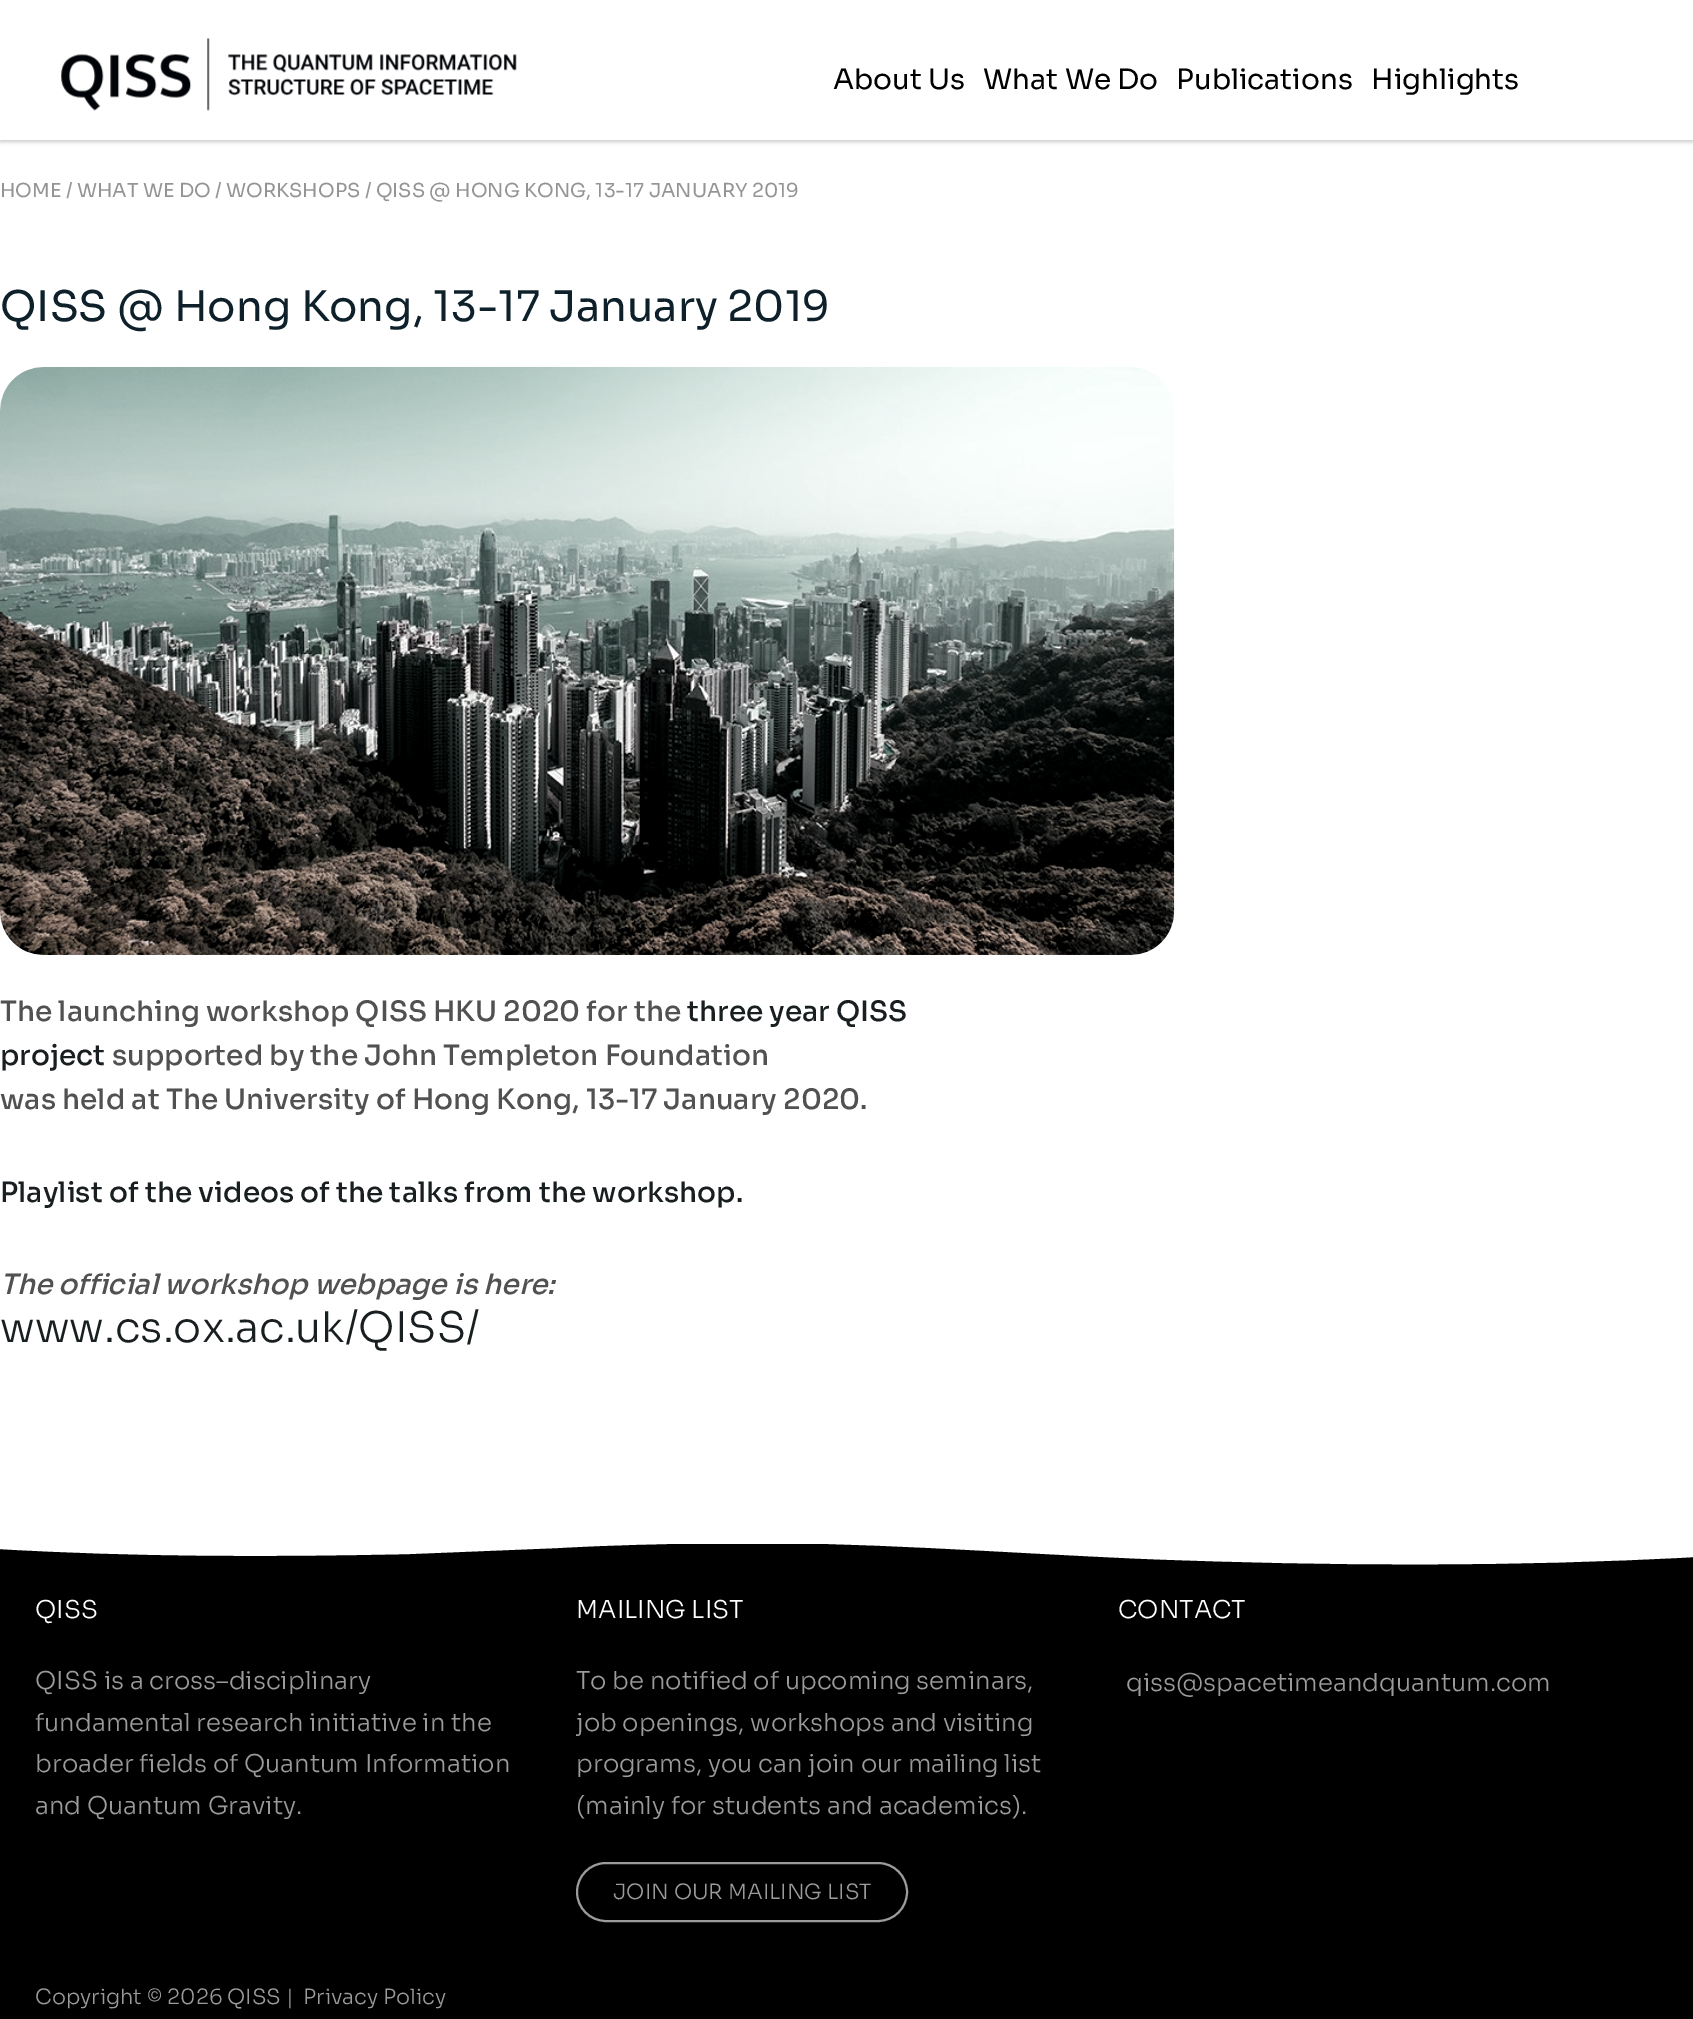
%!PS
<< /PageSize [1693 2019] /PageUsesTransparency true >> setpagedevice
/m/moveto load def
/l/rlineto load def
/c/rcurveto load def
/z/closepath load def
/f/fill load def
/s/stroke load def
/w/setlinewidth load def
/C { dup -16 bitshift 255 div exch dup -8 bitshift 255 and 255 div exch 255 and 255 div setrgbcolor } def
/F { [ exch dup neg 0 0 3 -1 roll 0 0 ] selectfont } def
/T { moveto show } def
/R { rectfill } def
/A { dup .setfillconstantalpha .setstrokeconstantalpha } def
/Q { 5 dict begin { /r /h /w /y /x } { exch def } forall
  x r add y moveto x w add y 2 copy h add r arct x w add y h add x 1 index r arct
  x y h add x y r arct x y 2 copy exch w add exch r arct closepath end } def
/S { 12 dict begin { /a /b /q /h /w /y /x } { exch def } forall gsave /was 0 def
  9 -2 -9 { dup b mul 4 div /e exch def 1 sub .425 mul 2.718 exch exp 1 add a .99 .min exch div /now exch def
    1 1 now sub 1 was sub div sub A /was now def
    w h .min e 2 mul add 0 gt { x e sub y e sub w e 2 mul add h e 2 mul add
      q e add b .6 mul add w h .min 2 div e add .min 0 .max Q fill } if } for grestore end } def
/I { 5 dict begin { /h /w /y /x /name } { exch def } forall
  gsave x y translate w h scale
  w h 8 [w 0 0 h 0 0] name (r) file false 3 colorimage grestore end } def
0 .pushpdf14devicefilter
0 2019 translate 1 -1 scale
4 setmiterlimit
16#FFFFFF C
0 0 1693 2019 R
16#000000 C
0 2 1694 140 0 2 .2 S
16#FFFFFF C
0 0 1693 140 R
(1.rgb) 61 38 456 73 I
/Sora-Regular 28 F
16#000000 C
(About Us) 833 89 T
(What We Do) 983 89 T
(Publications) 1176 89 T
(Highlights) 1371 89 T
/Sora-Regular 19.25 F
16#959494 C
(HOME / WHAT WE DO / WORKSHOPS / QISS @ HONG KONG, 13-17 JANUARY 2019) 0 197 T
/Sora-Regular 42 F
16#0E202A C
(QISS @ Hong Kong, 13-17 January 2019) 0 321 T
(2.rgb) 0 367 1175 588 I
/Sora-Medium 28 F
16#515151 C
(The launching workshop QISS HKU 2020 for the) 0 1021 T
16#191F20 C
(three year QISS) 687 1021 T
(project) 0 1065 T
16#515151 C
(supported by the John Templeton Foundation) 112 1065 T
(was held at The University of Hong Kong, 13-17 January 2020.) 0 1109 T
16#191F20 C
(Playlist of the videos of the talks from the workshop.) 0 1202 T
/Sora-MediumItalic 28 F
16#515151 C
(The official workshop webpage is here:) 0 1294 T
/Sora-Light 42 F
16#191F20 C
(www.cs.ox.ac.uk/QISS/) 0 1342 T
16#000000 C
0 1544 1693 475 R
16#FFFFFF C
715 1543 m 144 -2 288 10 432 16 c 182 7 366 8 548 -2 c 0 -15 l -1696 0 l 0 7 l 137 8 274 8 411 5 c 49 -2 99 -4 148 -6 c 52 -3 104 -4 157 -5 c z f
/Sora-Light 24.5 F
(QISS) 35 1618 T
16#9B9B9B C
(QISS is a cross–disciplinary) 35 1689 T
(fundamental research initiative in the) 35 1731 T
(broader fields of Quantum Information) 35 1772 T
(and Quantum Gravity.) 35 1814 T
16#FFFFFF C
(MAILING LIST) 576 1618 T
16#9B9B9B C
(To be notified of upcoming seminars,) 576 1689 T
(job openings, workshops and visiting) 576 1731 T
(programs, you can join our mailing list) 576 1772 T
(\(mainly for students and academics\).) 576 1814 T
2 w
577 1863 330 58 29 Q s
/Sora-Light 21 F
(JOIN OUR MAILING LIST) 613 1899 T
/Sora-Light 24.5 F
16#FFFFFF C
(CONTACT) 1118 1618 T
16#9B9B9B C
(qiss@spacetimeandquantum.com) 1126 1691 T
/Sora-Light 21 F
(Copyright © 2026 QISS |) 35 2004 T
(Privacy Policy) 303 2004 T
.poppdf14devicefilter showpage
